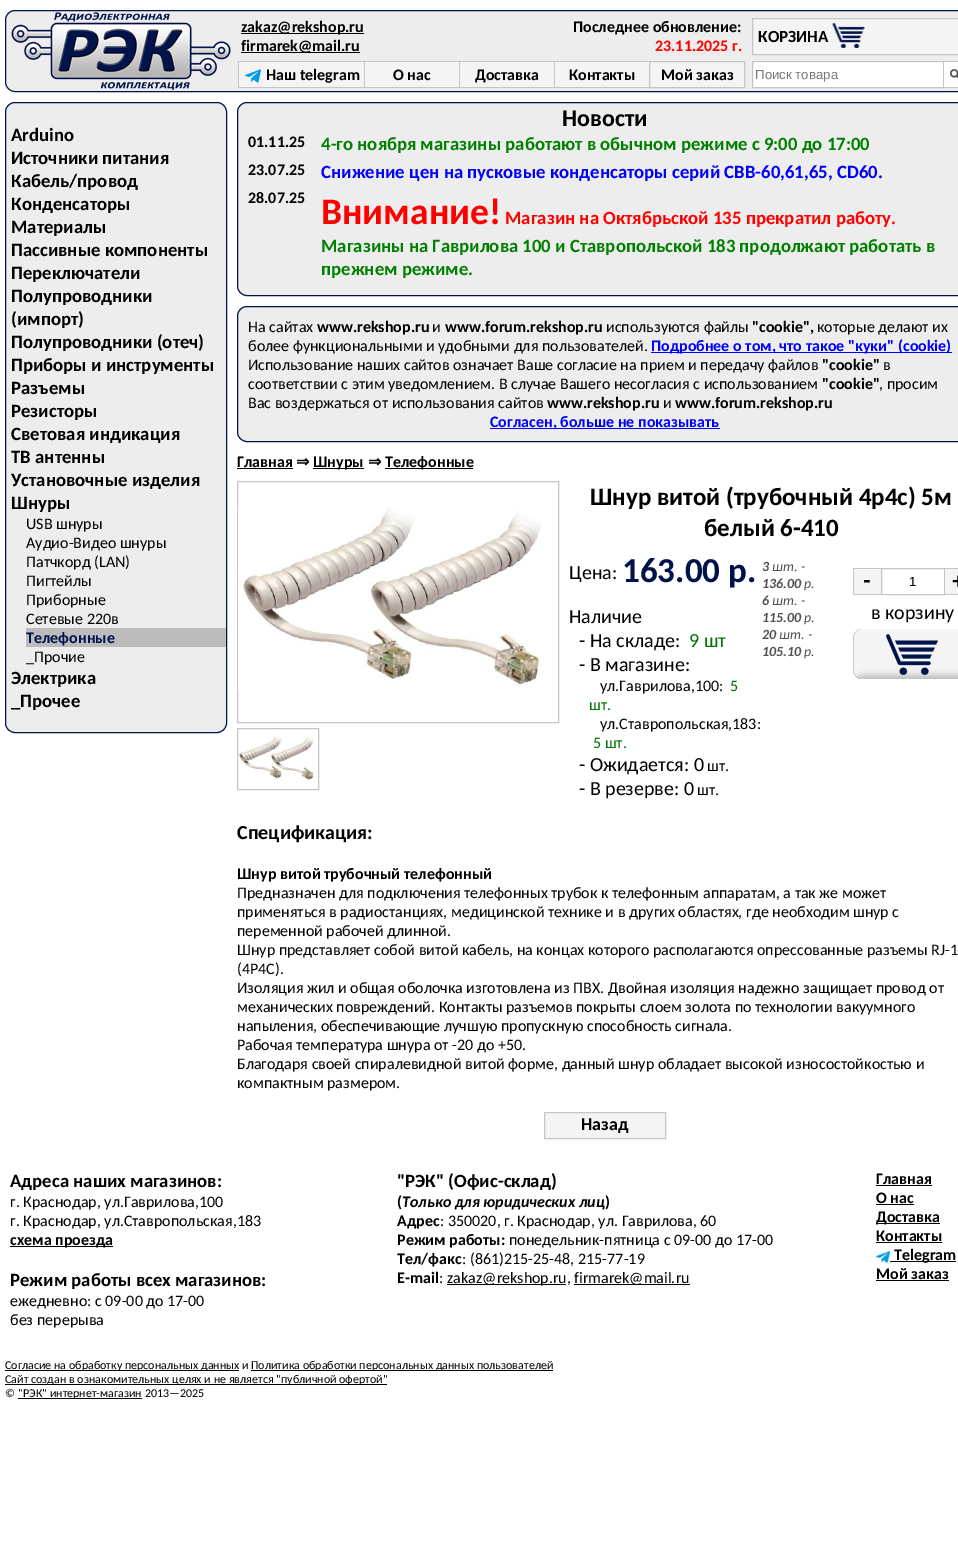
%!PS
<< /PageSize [958 1559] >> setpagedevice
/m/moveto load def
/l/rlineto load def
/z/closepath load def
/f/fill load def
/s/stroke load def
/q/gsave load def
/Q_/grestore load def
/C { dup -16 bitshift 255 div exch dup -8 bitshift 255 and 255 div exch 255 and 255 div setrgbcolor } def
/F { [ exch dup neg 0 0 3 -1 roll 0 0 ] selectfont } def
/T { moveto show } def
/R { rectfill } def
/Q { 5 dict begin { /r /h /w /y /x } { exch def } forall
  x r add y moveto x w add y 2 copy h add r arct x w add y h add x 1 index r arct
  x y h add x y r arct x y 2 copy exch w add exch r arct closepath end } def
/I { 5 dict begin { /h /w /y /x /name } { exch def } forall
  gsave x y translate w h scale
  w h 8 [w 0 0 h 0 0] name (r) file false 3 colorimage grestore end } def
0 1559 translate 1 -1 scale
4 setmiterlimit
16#FFFFFF C
0 0 958 1559 R
16#EDEDED C
5.5 10.5 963 81 9.5 Q q f Q_
16#00134B C
s
(1.rgb) 11 12 220 78 I
16#000000 C
241 33 123 1 R
/Carlito-Bold 16 F
(zakaz@rekshop.ru) 241 32 T
241 52 119 1 R
(firmarek@mail.ru) 241 51 T
(Последнее обновление:) 573 32 T
16#FF0000 C
(23.11.2025 г.) 655 51 T
16#F4F4F4 C
239 62 125 25 R
16#C3C5CB C
238 61 411 1 R
238 87 411 1 R
238 61 1 27 R
(2.rgb) 245 69 16 14 I
16#000000 C
(Наш telegram) 266 80 T
16#F4F4F4 C
365 62 94 25 R
16#C3C5CB C
364 61 1 27 R
16#000000 C
(О нас) 393 80 T
16#F4F4F4 C
460 62 94 25 R
16#C3C5CB C
459 61 1 27 R
16#000000 C
(Доставка) 475 80 T
16#F4F4F4 C
555 62 94 25 R
16#C3C5CB C
554 61 1 27 R
16#000000 C
(Контакты) 569 80 T
16#F4F4F4 C
649.5 61.5 m 95 0 l 0 26 l -95 0 l z q f Q_
16#C3C5CB C
s
16#000000 C
(Мой заказ) 661 80 T
16#F4F4F4 C
752.5 18.5 m 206 0 l 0 36 l -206 0 l z q f Q_
16#C3C5CB C
s
/Carlito-Bold 17 F
16#000000 C
(КОРЗИНА) 758 42 T
(3.rgb) 832 23 33 25 I
16#FFFFFF C
752.5 61.5 m 191 0 l 0 26 l -191 0 l z q f Q_
16#C3C5CB C
s
/LiberationSans-Regular 13.25 F
16#757575 C
(Поиск товара) 755 79 T
16#C3C5CB C
944 61 14 1 R
944 87 14 1 R
(4.rgb) 944 62 14 25 I
16#EDEDED C
5.5 102.5 221 630 9.5 Q q f Q_
16#00134B C
s
/Carlito-Bold 18.75 F
16#000000 C
(Arduino) 11 141 T
(Источники питания) 11 164 T
(Кабель/провод) 11 187 T
(Конденсаторы) 11 210 T
(Материалы) 11 233 T
(Пассивные компоненты) 11 256 T
(Переключатели) 11 279 T
(Полупроводники) 11 302 T
(\(импорт\)) 11 325 T
(Полупроводники \(отеч\)) 11 348 T
(Приборы и инструменты) 11 371 T
(Разъемы) 11 394 T
(Резисторы) 11 417 T
(Световая индикация) 11 440 T
(ТВ антенны) 11 463 T
(Установочные изделия) 11 486 T
(Шнуры) 11 509 T
/Carlito-Regular 16 F
(USB шнуры) 26 529 T
(Аудио-Видео шнуры) 26 548 T
(Патчкорд \(LAN\)) 26 567 T
(Пигтейлы) 26 586 T
(Приборные) 26 605 T
(Сетевые 220в) 26 624 T
16#BCBCBC C
26 628 200 19 R
/Carlito-Bold 16 F
16#00134B C
(Телефонные) 26 643 T
/Carlito-Regular 16 F
16#000000 C
(_Прочие) 26 662 T
/Carlito-Bold 18.75 F
(Электрика) 11 684 T
(_Прочее) 11 707 T
16#EDEDED C
237.5 102.5 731 193 9.5 Q q f Q_
16#00134B C
s
/Carlito-Bold 24 F
16#000000 C
(Новости) 562 126 T
/Carlito-Bold 16 F
(01.11.25) 248 147 T
/Carlito-Bold 18.75 F
16#008000 C
(4-го ноября магазины работают в обычном режиме с 9:00 до 17:00) 321 150 T
/Carlito-Bold 16 F
16#000000 C
(23.07.25) 248 175 T
/Carlito-Bold 18.75 F
16#0000FF C
(Снижение цен на пусковые конденсаторы серий CBB-60,61,65, CD60.) 321 178 T
/Carlito-Bold 16 F
16#000000 C
(28.07.25) 248 203 T
/Carlito-Bold 37.5 F
16#FF0000 C
(Внимание!) 321 224 T
/Carlito-Bold 18.75 F
(Магазин на Октябрьской 135 прекратил работу.) 505 224 T
16#008000 C
(Магазины на Гаврилова 100 и Ставропольской 183 продолжают работать в) 321 252 T
(прежнем режиме.) 321 275 T
16#EDEDED C
237.5 306.5 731 135 9.5 Q q f Q_
16#00134B C
s
/Carlito-Regular 16 F
16#000000 C
(На сайтах) 248 332 T
/Carlito-Bold 16 F
(www.rekshop.ru) 317 332 T
/Carlito-Regular 16 F
(и) 432 332 T
/Carlito-Bold 16 F
(www.forum.rekshop.ru) 445 332 T
/Carlito-Regular 16 F
(используются файлы) 606 332 T
/Carlito-Bold 16 F
("cookie",) 752 332 T
/Carlito-Regular 16 F
(которые делают их) 817 332 T
(более функциональными и удобными для пользователей.) 248 351 T
16#0000FF C
651 352 301 1 R
/Carlito-Bold 16 F
(Подробнее о том, что такое "куки" \(cookie\)) 651 351 T
/Carlito-Regular 16 F
16#000000 C
(Использование наших сайтов означает Ваше согласие на прием и передачу файлов) 248 370 T
/Carlito-Bold 16 F
("cookie") 822 370 T
/Carlito-Regular 16 F
(в) 883 370 T
(соответствии с этим уведомлением. В случае Вашего несогласия с использованием) 248 389 T
/Carlito-Bold 16 F
("cookie") 822 389 T
/Carlito-Regular 16 F
(, просим) 879 389 T
(Вас воздержаться от использования сайтов) 248 408 T
/Carlito-Bold 16 F
(www.rekshop.ru) 547 408 T
/Carlito-Regular 16 F
(и) 663 408 T
/Carlito-Bold 16 F
(www.forum.rekshop.ru) 675 408 T
16#0000FF C
490 428 230 1 R
(Согласен, больше не показывать) 490 427 T
16#000000 C
(Главная) 237 467 T
237 468 56 1 R
/DejaVuSans-Bold 16 F
(⇒) 296 467 T
313 468 51 1 R
/Carlito-Bold 16 F
(Шнуры) 313 467 T
/DejaVuSans-Bold 16 F
(⇒) 368 467 T
385 468 88 1 R
/Carlito-Bold 16 F
(Телефонные) 385 467 T
16#C3C5CB C
237.5 481.5 321 241 rectstroke
(5.rgb) 238 506 304 186 I
237.5 728.5 81 61 rectstroke
(6.rgb) 239 735 75 45 I
/Carlito-Bold 25 F
16#000000 C
(Шнур витой \(трубочный 4p4c\) 5м) 590 505 T
(белый 6-410) 704 536 T
/Carlito-Regular 20 F
(Цена:) 569 579 T
/Carlito-Bold 35 F
16#00134B C
(163.00 р.) 622 582 T
/Carlito-Regular 20 F
16#000000 C
(Наличие) 569 623 T
(- На складе:) 579 647 T
16#007400 C
(9 шт) 689 647 T
16#000000 C
(- В магазине:) 579 671 T
/Carlito-Regular 16 F
(ул.Гаврилова,100:) 600 691 T
16#007400 C
(5) 730 691 T
(шт.) 589 710 T
16#000000 C
(ул.Ставропольская,183:) 600 729 T
16#007400 C
(5 шт.) 593 748 T
/Carlito-Regular 20 F
16#000000 C
(- Ожидается: 0) 579 771 T
/Carlito-Regular 16 F
(шт.) 707 771 T
/Carlito-Regular 20 F
(- В резерве: 0) 579 795 T
/Carlito-Regular 16 F
(шт.) 697 795 T
/Carlito-BoldItalic 14 F
16#535353 C
(3) 762 571 T
/Carlito-Italic 14 F
(шт. -) 772 571 T
/Carlito-BoldItalic 14 F
(136.00) 762 588 T
/Carlito-Italic 14 F
(р.) 804 588 T
/Carlito-BoldItalic 14 F
(6) 762 605 T
/Carlito-Italic 14 F
(шт. -) 772 605 T
/Carlito-BoldItalic 14 F
(115.00) 762 622 T
/Carlito-Italic 14 F
(р.) 804 622 T
/Carlito-BoldItalic 14 F
(20) 762 639 T
/Carlito-Italic 14 F
(шт. -) 779 639 T
/Carlito-BoldItalic 14 F
(105.10) 762 656 T
/Carlito-Italic 14 F
(р.) 804 656 T
(7.rgb) 854 569 27 25 I
16#C3C5CB C
853 568 28 1 R
853 594 28 1 R
853 568 1 27 R
881.5 568.5 63 26 rectstroke
/LiberationSans-Regular 13.25 F
16#000000 C
(1) 909 586 T
(8.rgb) 945 569 13 25 I
16#C3C5CB C
945 568 13 1 R
945 594 13 1 R
/Carlito-Regular 20 F
16#000000 C
(в корзину) 871 619 T
(9.rgb) 853 629 105 50 I
/Carlito-Bold 20 F
(Спецификация:) 237 839 T
/Carlito-Bold 16 F
(Шнур витой трубочный телефонный) 237 879 T
/Carlito-Regular 16 F
(Предназначен для подключения телефонных трубок к телефонным аппаратам, а так же может) 237 898 T
(применяться в радиостанциях, медицинской технике и в других областях, где необходим шнур с) 237 917 T
(переменной рабочей длинной.) 237 936 T
(Шнур представляет собой витой кабель, на концах которого располагаются опрессованные разъемы RJ-1) 237 955 T
(\(4P4C\).) 237 974 T
(Изоляция жил и общая оболочка изготовлена из ПВХ. Двойная изоляция надежно защищает провод от) 237 993 T
(механических повреждений. Контакты разъемов покрыты слоем золота по технологии вакуумного) 237 1012 T
(напыления, обеспечивающие лучшую пропускную способность сигнала.) 237 1031 T
(Рабочая температура шнура от -20 до +50.) 237 1050 T
(Благодаря своей спиралевидной витой форме, данный шнур обладает высокой износостойкостью и) 237 1069 T
(компактным размером.) 237 1088 T
16#F4F4F4 C
544.5 1112.5 m 121 0 l 0 26 l -121 0 l z q f Q_
16#C3C5CB C
s
/Carlito-Bold 18 F
16#000000 C
(Назад) 581 1130 T
/Carlito-Bold 18.75 F
(Адреса наших магазинов:) 10 1187 T
/Carlito-Regular 16 F
(г. Краснодар, ул.Гаврилова,100) 10 1207 T
(г. Краснодар, ул.Ставропольская,183) 10 1226 T
10 1246 103 1 R
/Carlito-Bold 16 F
(схема проезда) 10 1245 T
/Carlito-Bold 18.75 F
(Режим работы всех магазинов:) 10 1286 T
/Carlito-Regular 16 F
(ежедневно: с 09-00 до 17-00) 10 1306 T
(без перерыва) 10 1325 T
/Carlito-Bold 18.75 F
("РЭК" \(Офис-склад\)) 397 1187 T
/Carlito-Bold 16 F
(\() 397 1207 T
/Carlito-BoldItalic 16 F
(Только для юридических лиц) 402 1207 T
/Carlito-Bold 16 F
(\)) 605 1207 T
(Адрес) 397 1226 T
/Carlito-Regular 16 F
(: 350020, г. Краснодар, ул. Гаврилова, 60) 440 1226 T
/Carlito-Bold 16 F
(Режим работы:) 397 1245 T
/Carlito-Regular 16 F
(понедельник-пятница с 09-00 до 17-00) 509 1245 T
/Carlito-Bold 16 F
(Тел/факс) 397 1264 T
/Carlito-Regular 16 F
(: \(861\)215-25-48, 215-77-19) 462 1264 T
/Carlito-Bold 16 F
(E-mail) 397 1283 T
/Carlito-Regular 16 F
(:) 439 1283 T
447 1284 119 1 R
(zakaz@rekshop.ru,) 447 1283 T
574 1284 116 1 R
(firmarek@mail.ru) 574 1283 T
/Carlito-Bold 16 F
(Главная) 876 1184 T
876 1185 56 1 R
(О нас) 876 1203 T
876 1204 38 1 R
876 1223 64 1 R
(Доставка) 876 1222 T
(Контакты) 876 1241 T
876 1242 66 1 R
(10.rgb) 876 1250 14 14 I
890 1261 66 1 R
(Telegram) 894 1260 T
(Мой заказ) 876 1279 T
876 1280 73 1 R
5 1370 234 1 R
/Carlito-Regular 12 F
(Согласие на обработку персональных данных и) 5 1369 T
251 1370 302 1 R
(Политика обработки персональных данных пользователей) 251 1369 T
5 1384 382 1 R
(Сайт создан в ознакомительных целях и не является "публичной офертой") 5 1383 T
(©) 5 1397 T
18 1398 124 1 R
("РЭК" интернет-магазин 2013—2025) 18 1397 T
showpage
